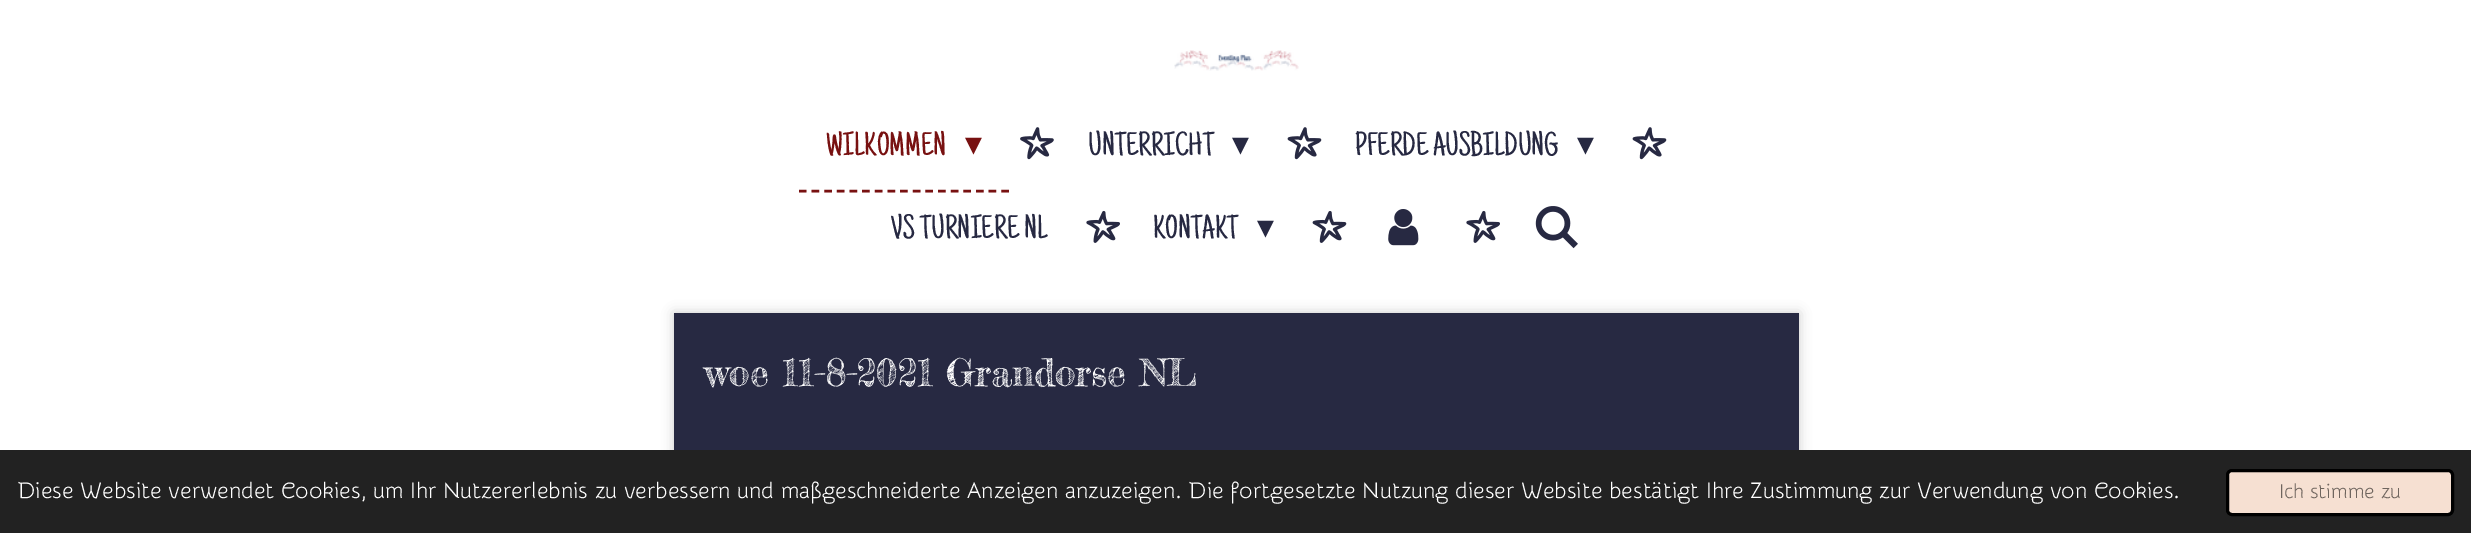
%!PS
<< /PageSize [2471 533] /PageUsesTransparency true >> setpagedevice
/m/moveto load def
/l/rlineto load def
/f/fill load def
/s/stroke load def
/q/gsave load def
/Q_/grestore load def
/w/setlinewidth load def
/C { dup -16 bitshift 255 div exch dup -8 bitshift 255 and 255 div exch 255 and 255 div setrgbcolor } def
/F { [ exch dup neg 0 0 3 -1 roll 0 0 ] selectfont } def
/T { moveto show } def
/R { rectfill } def
/A { dup .setfillconstantalpha .setstrokeconstantalpha } def
/Q { 5 dict begin { /r /h /w /y /x } { exch def } forall
  x r add y moveto x w add y 2 copy h add r arct x w add y h add x 1 index r arct
  x y h add x y r arct x y 2 copy exch w add exch r arct closepath end } def
/S { 12 dict begin { /a /b /q /h /w /y /x } { exch def } forall gsave /was 0 def
  9 -2 -9 { dup b mul 4 div /e exch def 1 sub .425 mul 2.718 exch exp 1 add a .99 .min exch div /now exch def
    1 1 now sub 1 was sub div sub A /was now def
    w h .min e 2 mul add 0 gt { x e sub y e sub w e 2 mul add h e 2 mul add
      q e add b .6 mul add w h .min 2 div e add .min 0 .max Q fill } if } for grestore end } def
/I { 5 dict begin { /h /w /y /x /name } { exch def } forall
  gsave x y translate w h scale
  w h 8 [w 0 0 h 0 0] name (r) file false 3 colorimage grestore end } def
0 .pushpdf14devicefilter
0 533 translate 1 -1 scale
4 setmiterlimit
16#FFFFFF C
0 0 2471 533 R
(1.rgb) 1174 50 125 21 I
16#781111 C
2.5 w
[7.5 5.15] 0 setdash
799 191 m 210 0 l s
/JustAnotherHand-Regular 33.75 F
(WILKOMMEN) 826 155 T
/DejaVuSans-Regular 33.75 F
(▾) 965 155 T
(2.rgb) 1020 127 34 33 I
/JustAnotherHand-Regular 33.75 F
16#272942 C
(UNTERRICHT) 1088 155 T
/DejaVuSans-Regular 33.75 F
(▾) 1232 155 T
(3.rgb) 1287 127 35 33 I
/JustAnotherHand-Regular 33.75 F
(PFERDE AUSBILDUNG) 1355 155 T
/DejaVuSans-Regular 33.75 F
(▾) 1577 155 T
(3.rgb) 1632 127 35 33 I
/JustAnotherHand-Regular 33.75 F
(VS TURNIERE NL) 891 238 T
(4.rgb) 1086 210 34 33 I
(KONTAKT) 1153 238 T
/DejaVuSans-Regular 33.75 F
(▾) 1257 238 T
(5.rgb) 1312 211 35 32 I
(6.rgb) 1388 209 31 37 I
(4.rgb) 1466 210 34 33 I
(7.rgb) 1535 206 43 43 I
16#000000 C
674 313 1125 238 0 6 .2 S
16#272942 C
674 313 1125 137 R
/FrederickatheGreat-Regular 37.5 F
16#FFFFFF C
(woe 11-8-2021 Grandorse NL) 704 386 T
16#222222 C
0 450 2471 83 R
/Snippet-Regular 22.5 F
16#FFFFFF C
(Diese Website verwendet Cookies, um Ihr Nutzererlebnis zu verbessern und maßgeschneiderte Anzeigen anzuzeigen. Die fortgesetzte Nutzung dieser Website bestätigt Ihre Zustimmung zur Verwendung von Cookies.) 18 498 T
16#F6E0D2 C
2227.5 470.5 225 44 4.5 Q q f Q_
16#000000 C
3 w
[] 0 setdash
s
/Snippet-Regular 20.25 F
16#6F655E C
(Ich stimme zu) 2279 498 T
.poppdf14devicefilter showpage
